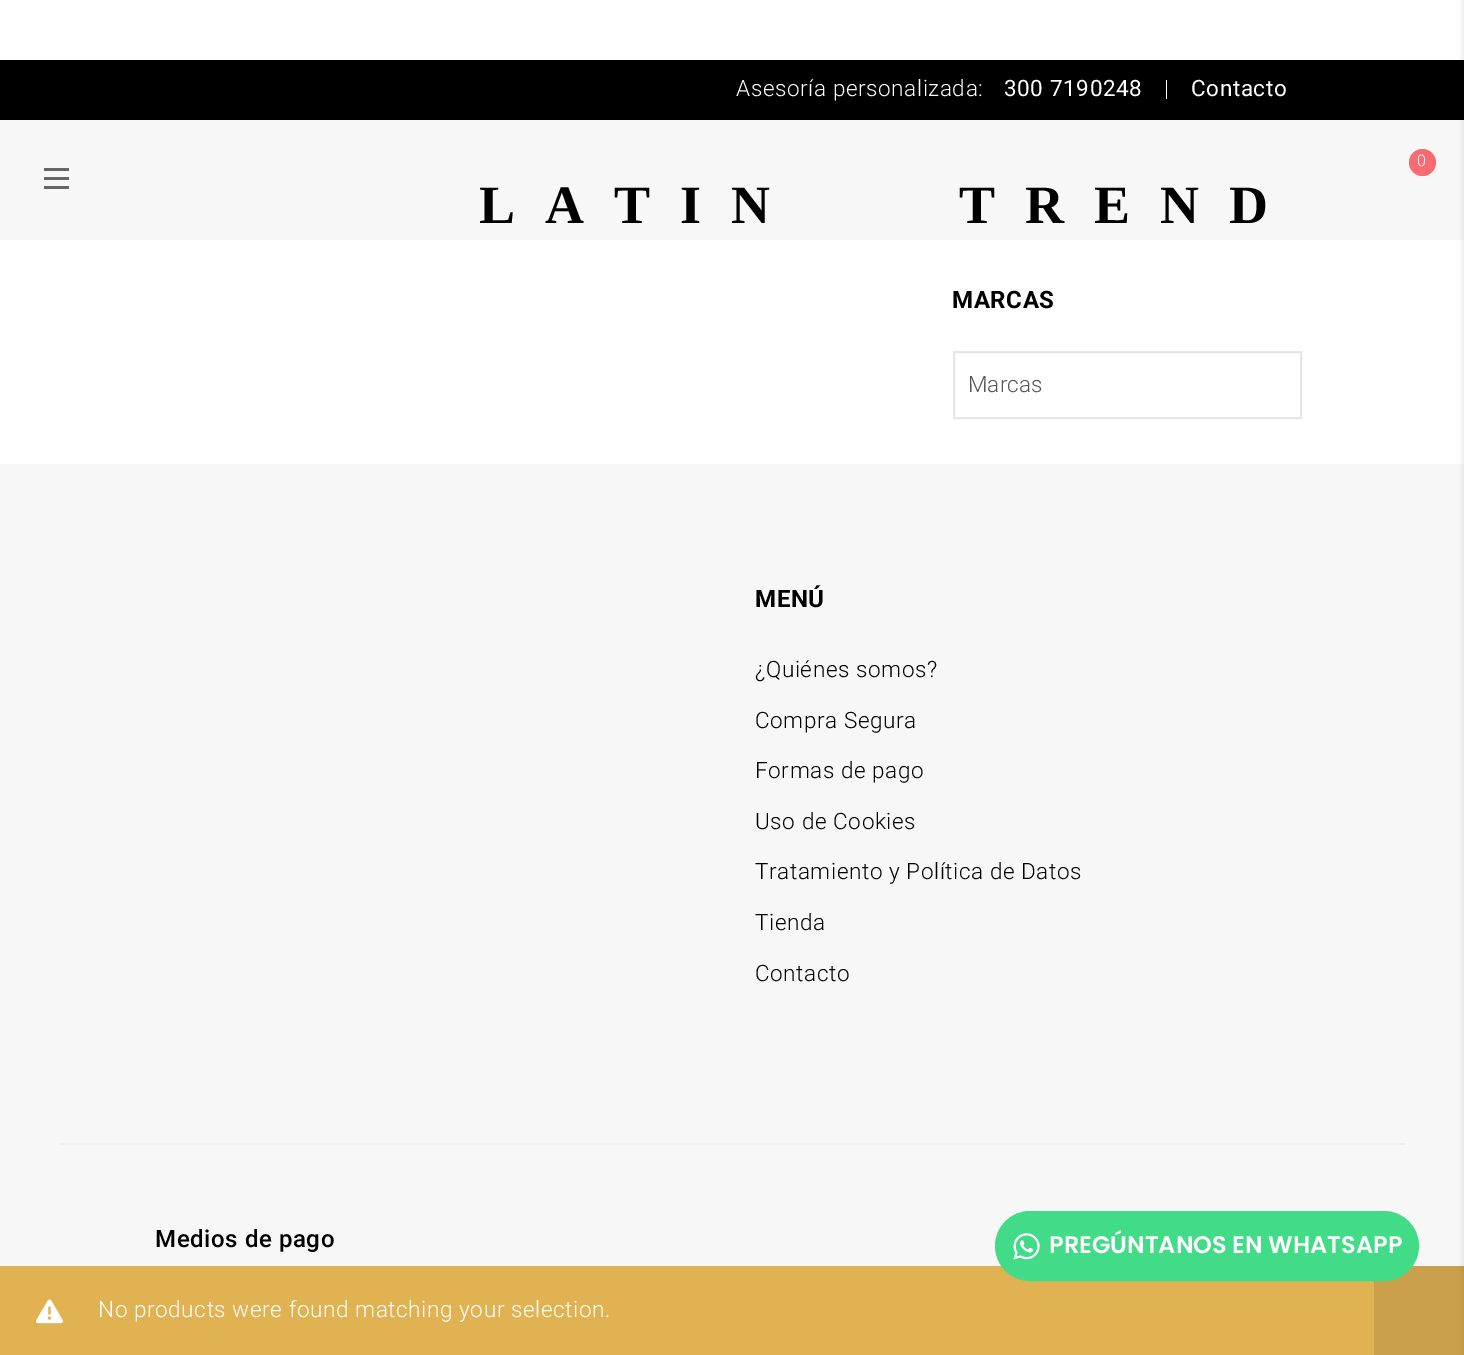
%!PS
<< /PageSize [1464 1355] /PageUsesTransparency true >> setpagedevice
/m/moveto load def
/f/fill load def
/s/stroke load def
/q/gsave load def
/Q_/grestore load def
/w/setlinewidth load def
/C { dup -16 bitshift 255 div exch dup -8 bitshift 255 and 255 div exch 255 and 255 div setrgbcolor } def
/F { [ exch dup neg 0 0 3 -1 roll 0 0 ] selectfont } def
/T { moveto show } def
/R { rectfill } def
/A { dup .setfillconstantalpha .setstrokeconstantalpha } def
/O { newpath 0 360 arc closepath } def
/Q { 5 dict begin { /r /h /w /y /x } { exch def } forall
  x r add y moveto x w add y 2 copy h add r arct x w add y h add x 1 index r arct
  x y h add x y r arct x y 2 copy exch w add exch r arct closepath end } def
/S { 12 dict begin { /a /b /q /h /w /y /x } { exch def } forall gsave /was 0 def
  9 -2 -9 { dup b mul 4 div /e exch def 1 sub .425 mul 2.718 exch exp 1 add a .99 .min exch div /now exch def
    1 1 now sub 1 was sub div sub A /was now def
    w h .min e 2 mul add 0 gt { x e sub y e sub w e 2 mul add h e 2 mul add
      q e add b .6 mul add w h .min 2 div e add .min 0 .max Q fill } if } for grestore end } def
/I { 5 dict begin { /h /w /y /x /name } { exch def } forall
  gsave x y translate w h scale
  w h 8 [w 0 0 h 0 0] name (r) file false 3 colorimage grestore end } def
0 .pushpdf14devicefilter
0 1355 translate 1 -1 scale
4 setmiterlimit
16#FFFFFF C
0 0 1464 1355 R
16#000000 C
0 60 1464 60 R
/Roboto-Light 22.5 F
16#FFFFFF C
736 96 m .6 0 (Asesoría personalizada:) ashow
/Roboto-Regular 22.5 F
1004 96 m .6 0 (300 7190248) ashow
/Roboto-Light 22.5 F
1164 96 m .6 0 (|) ashow
/Roboto-Regular 22.5 F
1191 96 m .6 0 (Contacto) ashow
16#F7F7F7 C
0 120 1464 120 R
16#CAA04A C
1374 1266 90 89 R
16#F7F7F7 C
0 464 1464 802 R
16#000000 C
1463 0 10 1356 0 3 .1 S
16#F86B73 C
1422.5 162.5 13.5 O f
/Roboto-Light 16 F
16#FFFFFF C
1417 166 m .6 0 (0) ashow
16#666666 C
44 177 25 3 R
44 168 25 3 R
44 186 25 3 R
/LiberationSerif-Bold 54 F
16#000000 C
479 223 m 30 0 (LATIN) ashow
959 223 m 30 0 (TREND) ashow
/Roboto-Bold 24 F
952 308 m .6 0 (MARCAS) ashow
16#E6E6E6 C
2 w
954 352 347 66 rectstroke
/Roboto-Light 22.5 F
16#555555 C
(Marcas) 968 392 T
16#E0B252 C
0 1266 1374 89 R
(1.rgb) 36 1299 27 25 I
16#FFFFFF C
98 1317 m .6 0 (No products were found matching your selection.) ashow
/Roboto-Bold 24 F
16#000000 C
755 607 m .6 0 (MENÚ) ashow
/Roboto-Light 22.5 F
755 677 m .6 0 (¿Quiénes somos?) ashow
755 728 m .6 0 (Compra Segura) ashow
755 778 m .6 0 (Formas de pago) ashow
755 829 m .6 0 (Uso de Cookies) ashow
755 879 m .6 0 (Tratamiento y Política de Datos) ashow
755 930 m .6 0 (Tienda) ashow
755 981 m .6 0 (Contacto) ashow
16#EFEFEF C
59 1143 1347 2 R
/Roboto-Medium 24 F
16#000000 C
155 1247 m .6 0 (Medios de pago) ashow
16#42DB87 C
996 1212 422 68 34 Q q f Q_
s
(2.rgb) 1013 1233 27 27 I
/Poppins-SemiBold 24 F
16#FFFFFF C
(PREGÚNTANOS EN WHATSAPP) 1049 1253 T
.poppdf14devicefilter showpage
